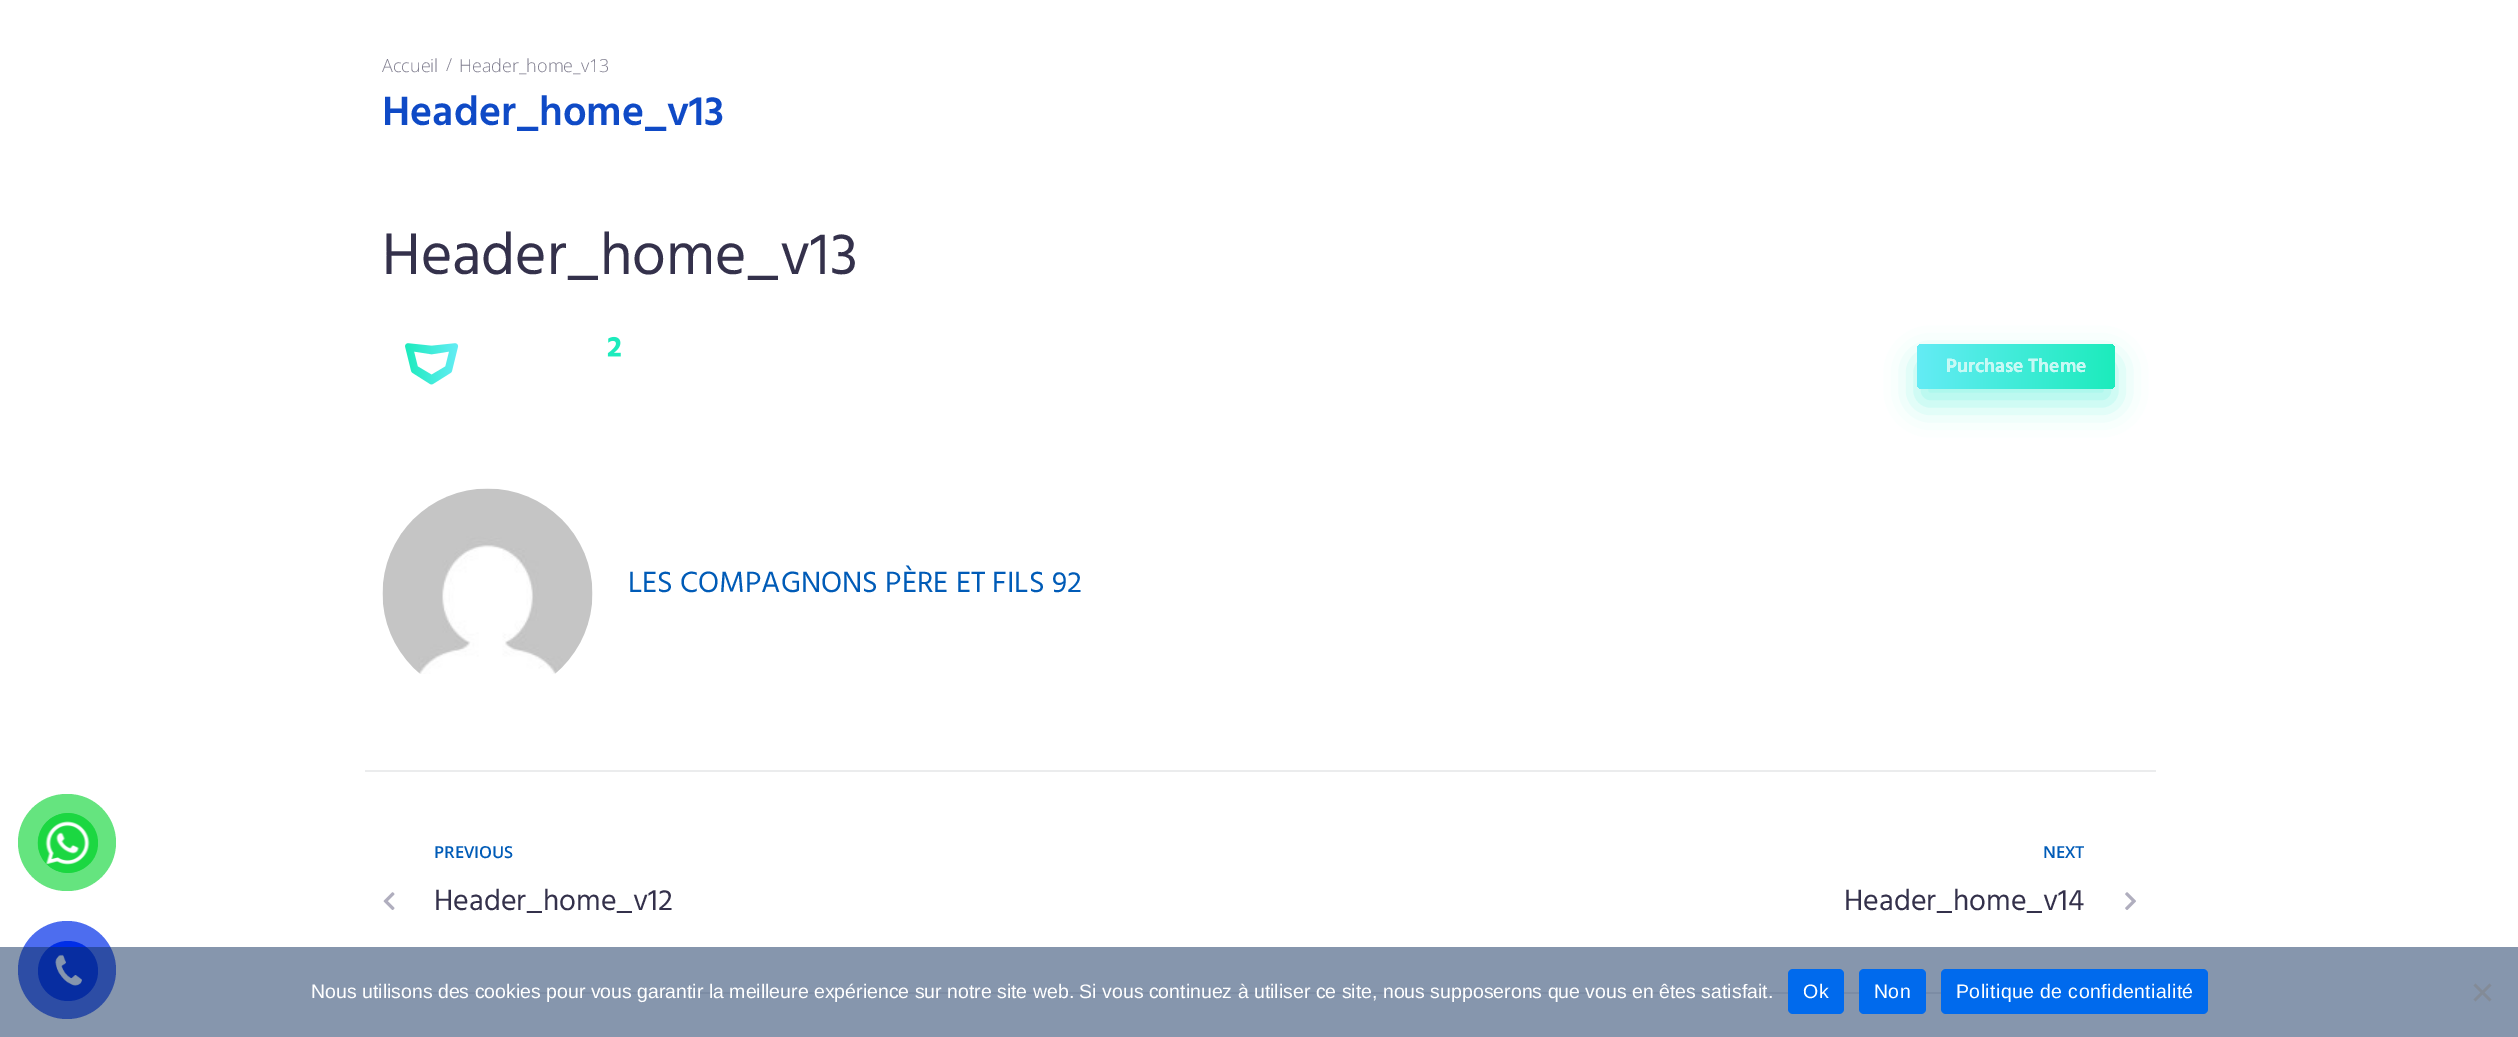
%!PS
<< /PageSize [2518 1037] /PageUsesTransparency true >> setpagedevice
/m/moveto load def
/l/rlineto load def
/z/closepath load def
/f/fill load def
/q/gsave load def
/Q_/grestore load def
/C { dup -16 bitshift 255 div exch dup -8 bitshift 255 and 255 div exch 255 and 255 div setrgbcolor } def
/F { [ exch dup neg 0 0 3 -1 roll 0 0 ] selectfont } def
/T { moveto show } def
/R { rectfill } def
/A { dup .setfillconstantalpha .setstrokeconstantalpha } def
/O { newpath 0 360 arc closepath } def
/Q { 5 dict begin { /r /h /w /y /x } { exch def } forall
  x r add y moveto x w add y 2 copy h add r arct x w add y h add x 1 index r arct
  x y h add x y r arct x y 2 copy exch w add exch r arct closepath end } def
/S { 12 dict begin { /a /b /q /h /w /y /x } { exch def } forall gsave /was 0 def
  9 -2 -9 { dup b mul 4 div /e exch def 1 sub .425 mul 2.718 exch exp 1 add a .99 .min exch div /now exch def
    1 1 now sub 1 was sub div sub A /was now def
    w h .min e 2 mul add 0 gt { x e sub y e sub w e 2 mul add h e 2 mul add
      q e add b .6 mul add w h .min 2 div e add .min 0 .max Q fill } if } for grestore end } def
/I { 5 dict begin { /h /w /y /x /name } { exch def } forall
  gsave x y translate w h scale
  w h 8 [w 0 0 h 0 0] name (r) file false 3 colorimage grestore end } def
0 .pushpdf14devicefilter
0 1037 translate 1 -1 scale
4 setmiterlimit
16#FFFFFF C
0 0 2518 1037 R
16#65E47F C
18 794 98 97 48.5 Q f
16#1CD741 C
68 843 30 O f
(1.rgb) 37 813 53 60 I
16#4D6DEF C
67 970 49 O f
16#002EE8 C
68 971 30 O f
(2.rgb) 55 954 27 32 I
/OpenSans-Light 18 F
16#7F7D8E C
(Accueil) 382 72 T
(/) 446 71 T
(Header_home_v13) 459 72 T
/Hind-SemiBold 42 F
16#0F4AC6 C
(Header_home_v13) 382 125 T
/Hind-Regular 60 F
16#34314B C
(Header_home_v13) 382 274 T
(3.rgb) 405 336 216 49 I
16#40ECD9 C
1917 359 198 45 5 15 .5 S
q 1917 344 198 45 5 Q clip newpath
<< /ShadingType 2 /ColorSpace /DeviceRGB /Coords [1917 366 2115 366] /Extend [true true] /Function << /FunctionType 2 /Domain [0 1] /C0 [.392 .925 .961] /C1 [.11 .922 .737] /N 1 >> >> shfill Q_
/Hind-SemiBold 19.5 F
16#FFFFFF C
(Purchase Theme) 1946 372 T
16#C7F9F4 C
(Purchase Theme) 1946 372 T
16#EBECED C
365 770 1791 2 R
(4.rgb) 382 488 211 186 I
/Hind-Regular 30 F
16#005BB7 C
(LES COMPAGNONS PÈRE ET FILS 92) 628 592 T
16#EBECED C
383 992 1558 2 R
/OpenSans-SemiBold 16.5 F
16#005BB7 C
(PREVIOUS) 434 858 T
(5.rgb) 383 892 12 18 I
/Hind-Regular 30 F
16#34314B C
(Header_home_v12) 434 910 T
/OpenSans-SemiBold 16.5 F
16#005BB7 C
(NEXT) 2043 858 T
/Hind-Regular 30 F
16#34314B C
(Header_home_v14) 1844 910 T
(6.rgb) 2125 892 11 18 I
0.5 A
16#0E2D5B C
0 947 2518 90 R
/LiberationSans-Regular 19.5 F
1 A
16#FFFFFF C
(Nous utilisons des cookies pour vous garantir la meilleure expérience sur notre site web. Si vous continuez à utiliser ce site, nous supposerons que vous en êtes satisfait.) 311 998 T
16#006AED C
1788 969 56 45 5 Q f
16#FFFFFF C
1803 998 m .4 0 (Ok) ashow
16#006AED C
1859 969 67 45 5 Q f
16#FFFFFF C
1874 998 m .4 0 (Non) ashow
16#006AED C
1941 969 267 45 5 Q f
16#FFFFFF C
1956 998 m .4 0 (Politique de confidentialité) ashow
16#838B97 C
2489.5 983.5 m 2 2 l -16 16 l -2 -2 l z f
2473.5 985.5 m 2 -2 l 16 16 l -2 2 l z f
.poppdf14devicefilter showpage
